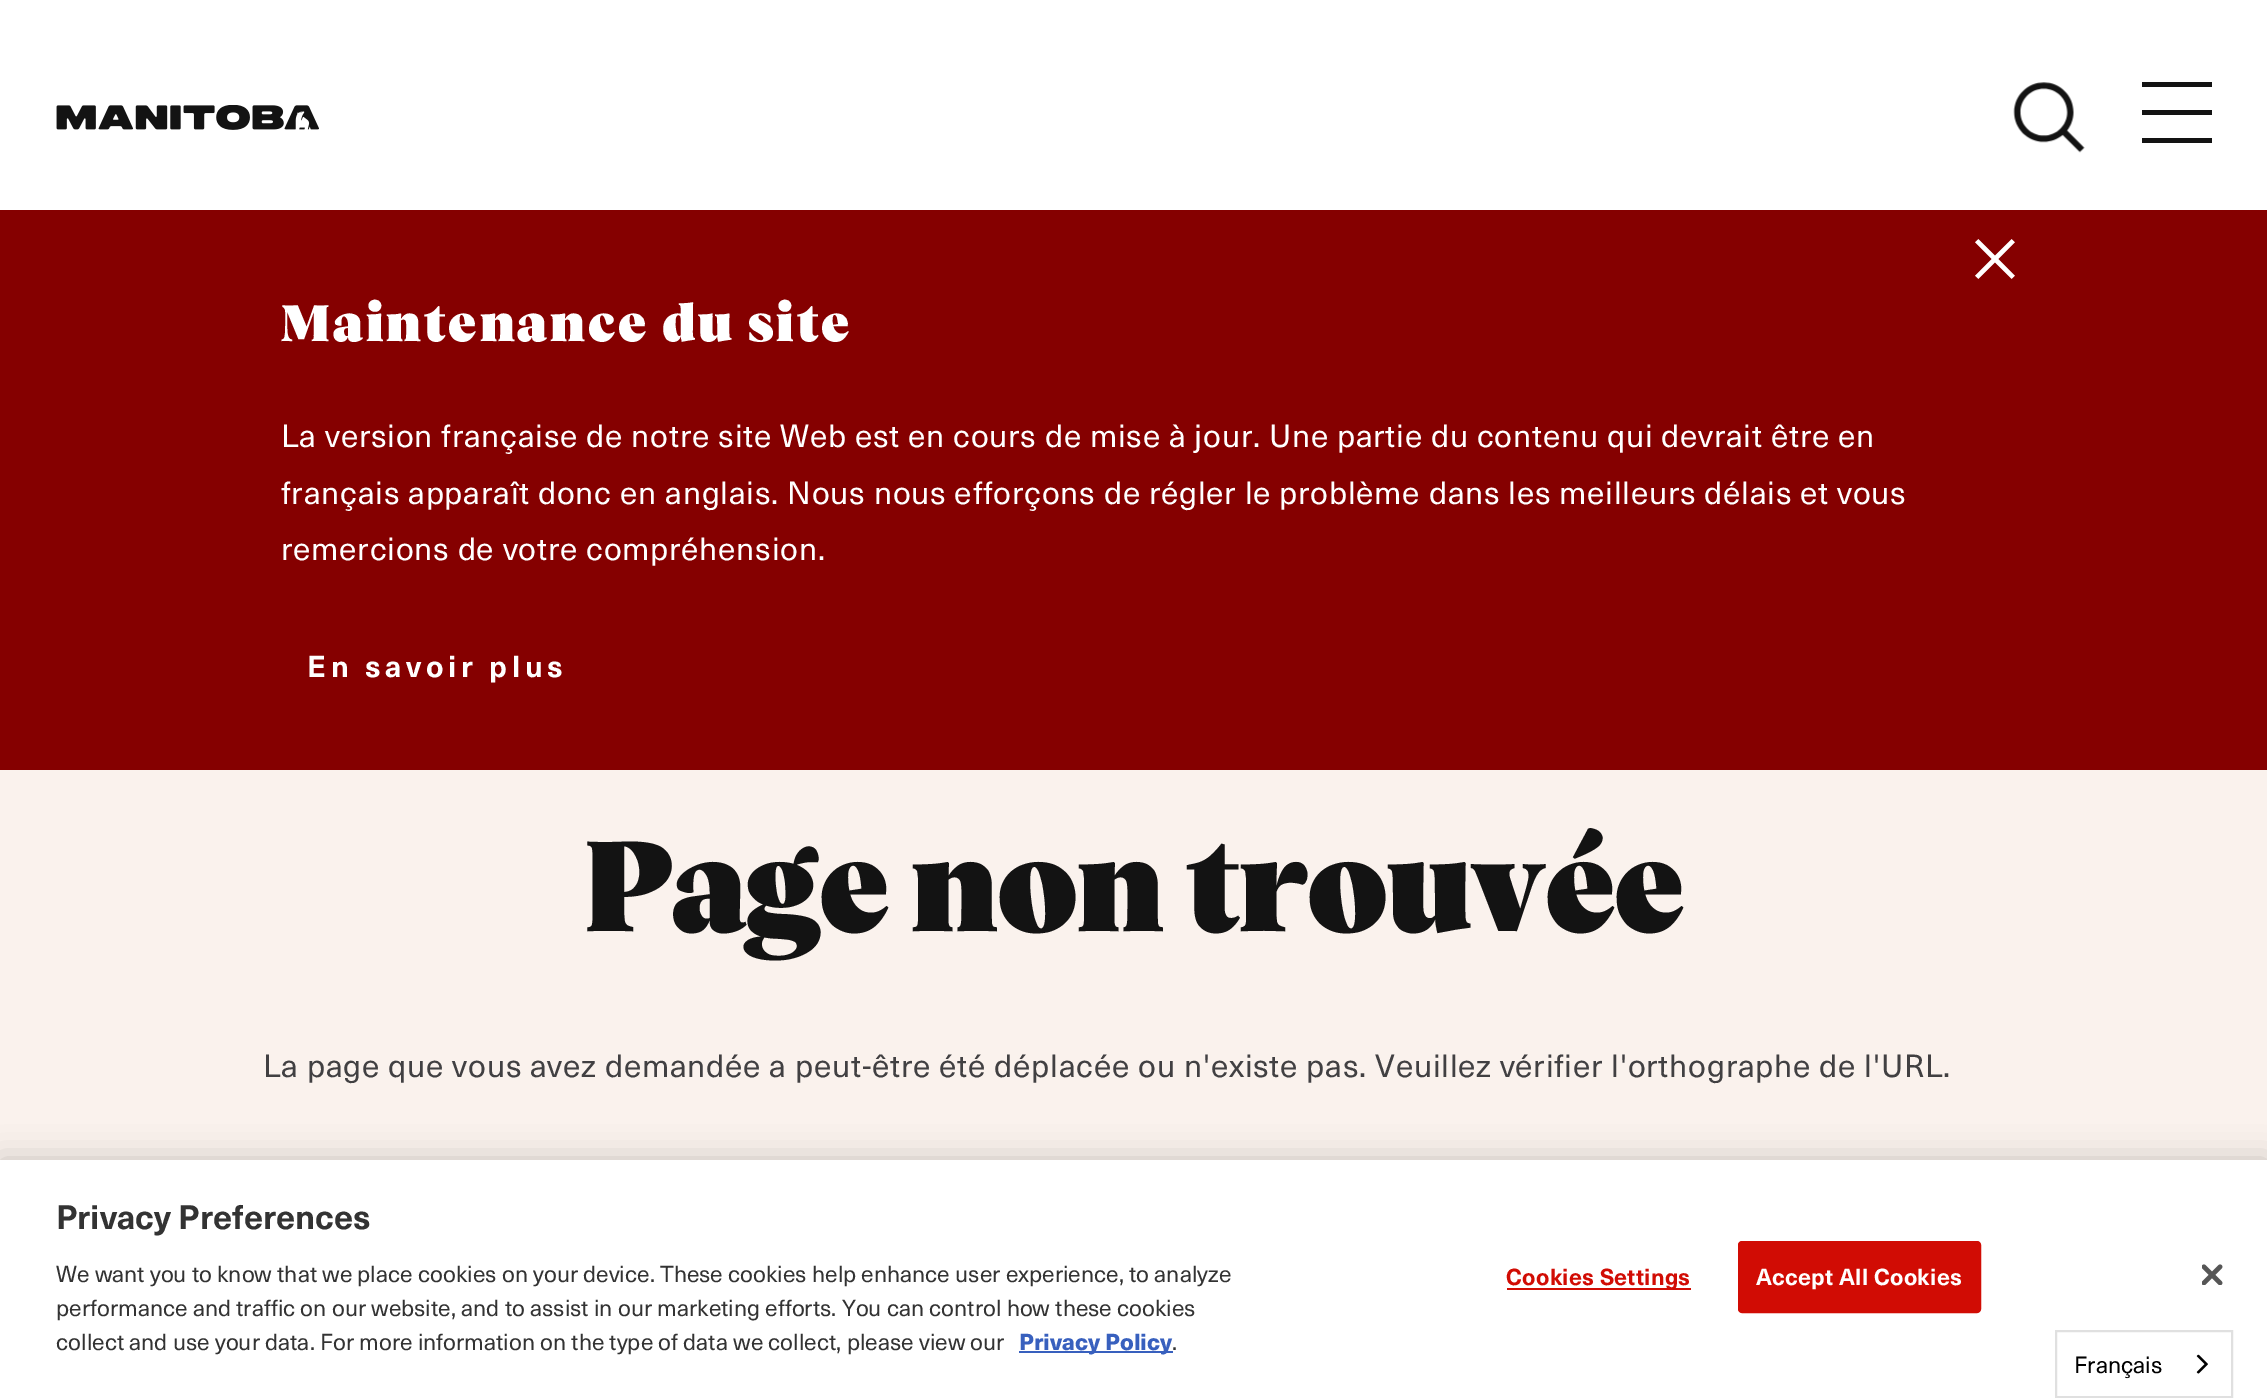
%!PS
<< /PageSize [2267 1398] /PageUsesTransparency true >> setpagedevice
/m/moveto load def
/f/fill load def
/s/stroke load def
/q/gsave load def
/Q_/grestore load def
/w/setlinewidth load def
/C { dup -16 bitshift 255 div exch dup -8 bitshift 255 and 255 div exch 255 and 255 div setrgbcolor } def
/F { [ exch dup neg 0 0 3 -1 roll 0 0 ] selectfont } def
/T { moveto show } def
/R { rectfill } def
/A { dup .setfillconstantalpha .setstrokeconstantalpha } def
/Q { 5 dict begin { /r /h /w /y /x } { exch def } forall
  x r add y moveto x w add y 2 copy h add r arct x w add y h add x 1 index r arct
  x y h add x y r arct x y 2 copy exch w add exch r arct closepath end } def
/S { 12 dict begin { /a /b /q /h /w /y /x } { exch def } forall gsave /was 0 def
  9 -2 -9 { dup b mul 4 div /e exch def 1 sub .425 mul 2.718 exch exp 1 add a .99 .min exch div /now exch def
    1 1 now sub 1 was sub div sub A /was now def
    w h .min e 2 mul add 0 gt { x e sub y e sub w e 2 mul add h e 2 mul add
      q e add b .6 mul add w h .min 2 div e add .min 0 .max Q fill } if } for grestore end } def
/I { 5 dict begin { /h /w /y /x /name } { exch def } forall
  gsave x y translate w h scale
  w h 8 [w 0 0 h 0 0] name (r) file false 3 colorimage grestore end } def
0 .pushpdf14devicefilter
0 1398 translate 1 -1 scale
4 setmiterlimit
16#FAF2ED C
0 0 2267 1398 R
16#FFFFFF C
0 0 2267 210 R
(1.rgb) 56 105 263 25 I
(2.rgb) 2013 82 72 71 I
16#131313 C
2142 82 70 5 R
2142 110 70 5 R
2142 138 70 5 R
16#850000 C
0 210 2267 560 R
(3.rgb) 1975 239 40 40 I
/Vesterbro-Black 52.5 F
16#FFFFFF C
281 341 m 2.9 0 (Maintenance du site) ashow
/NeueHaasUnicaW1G-Regular 31.5 F
281 447 m .79 0 (La version française de notre site Web est en cours de mise à jour. Une partie du contenu qui devrait être en) ashow
281 504 m .79 0 (français apparaît donc en anglais. Nous nous efforçons de régler le problème dans les meilleurs délais et vous) ashow
281 560 m .79 0 (remercions de votre compréhension.) ashow
/NeueHaasUnicaW1G-Bold 29.75 F
307 677 m 4.75 0 (En savoir plus) ashow
/Vesterbro-Black 131.25 F
16#131313 C
584 931 m -1.4 0 (Page non trouvée) ashow
/NeueHaasUnicaW1G-Regular 31.5 F
16#414042 C
263 1077 m .79 0 (La page que vous avez demandée a peut-être été déplacée ou n'existe pas. Veuillez vérifier l'orthographe de l'URL.) ashow
16#000000 C
0 1160 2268 238 0 16 .2 S
16#FFFFFF C
0 1160 2267 238 R
/NeueHaasUnicaW1G-Bold 33.5 F
16#333333 C
(Privacy Preferences) 56 1229 T
/NeueHaasUnicaW1G-Regular 22.75 F
(We want you to know that we place cookies on your device. These cookies help enhance user experience, to analyze) 56 1282 T
(performance and traffic on our website, and to assist in our marketing efforts. You can control how these cookies) 56 1316 T
(collect and use your data. For more information on the type of data we collect, please view our) 56 1350 T
16#3860BE C
1019 1351 154 2 R
/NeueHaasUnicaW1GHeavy-Black 22.75 F
(Privacy Policy) 1019 1350 T
/NeueHaasUnicaW1G-Regular 22.75 F
16#333333 C
(.) 1172 1350 T
16#D10C04 C
1507 1288 184 2 R
/NeueHaasUnicaW1G-Bold 22.75 F
1506 1285 m .25 0 (Cookies Settings) ashow
1739 1242 241 70 3 Q q f Q_
2 w
s
16#FFFFFF C
1756 1285 m .25 0 (Accept All Cookies) ashow
(4.rgb) 2202 1264 21 21 I
16#E0E0E0 C
2056 1331 176 66 rectstroke
/NeueHaasUnicaW1G-Regular 23 F
16#000000 C
(Français) 2074 1373 T
(5.rgb) 2196 1354 12 20 I
.poppdf14devicefilter showpage
